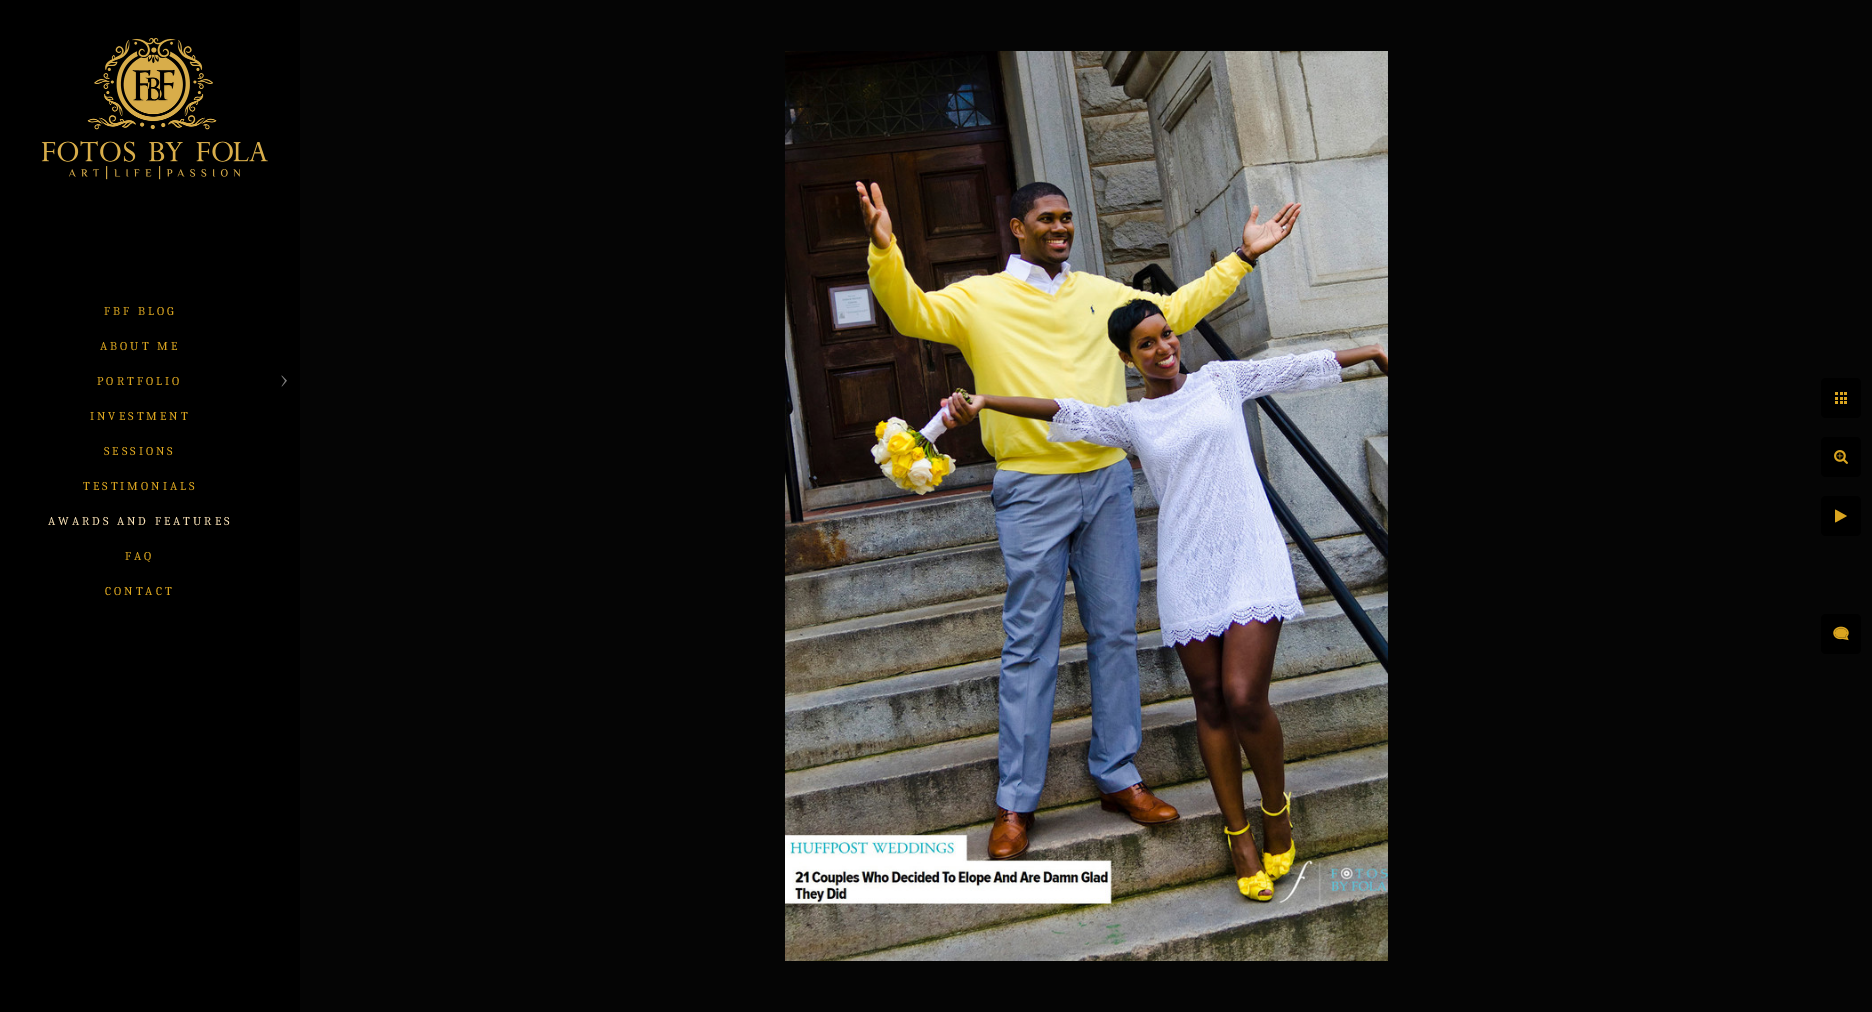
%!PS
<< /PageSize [1872 1012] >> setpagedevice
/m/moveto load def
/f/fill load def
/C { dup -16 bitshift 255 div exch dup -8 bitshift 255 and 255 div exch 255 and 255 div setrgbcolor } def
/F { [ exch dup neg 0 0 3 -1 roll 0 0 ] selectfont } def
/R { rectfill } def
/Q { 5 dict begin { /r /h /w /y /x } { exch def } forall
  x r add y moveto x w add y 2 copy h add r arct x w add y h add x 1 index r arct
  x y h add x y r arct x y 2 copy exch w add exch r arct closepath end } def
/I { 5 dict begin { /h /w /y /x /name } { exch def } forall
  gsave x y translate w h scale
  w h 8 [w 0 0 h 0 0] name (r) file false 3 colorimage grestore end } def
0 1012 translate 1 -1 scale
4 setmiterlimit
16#050505 C
0 0 1872 1012 R
16#000000 C
0 0 300 1012 R
(1.rgb) 41 38 227 142 I
/Caladea-Regular 12 F
16#DAA520 C
104 315 m 3 0 (FBF BLOG) ashow
100 350 m 3 0 (ABOUT ME) ashow
97 385 m 3 0 (PORTFOLIO) ashow
(2.rgb) 281 375 6 12 I
90 420 m 3 0 (INVESTMENT) ashow
104 455 m 3 0 (SESSIONS) ashow
83 490 m 3 0 (TESTIMONIALS) ashow
16#F5DEB3 C
48 525 m 3 0 (AWARDS AND FEATURES) ashow
16#DAA520 C
125 560 m 3 0 (FAQ) ashow
105 595 m 3 0 (CONTACT) ashow
(3.rgb) 785 51 603 910 I
16#000000 C
1821 378 40 40 5 Q f
(4.rgb) 1835 392 12 12 I
1821 437 40 40 5 Q f
(5.rgb) 1834 450 14 14 I
1821 496 40 40 5 Q f
(6.rgb) 1835 509 12 14 I
1821 614 40 40 5 Q f
(7.rgb) 1833 626 16 15 I
showpage
